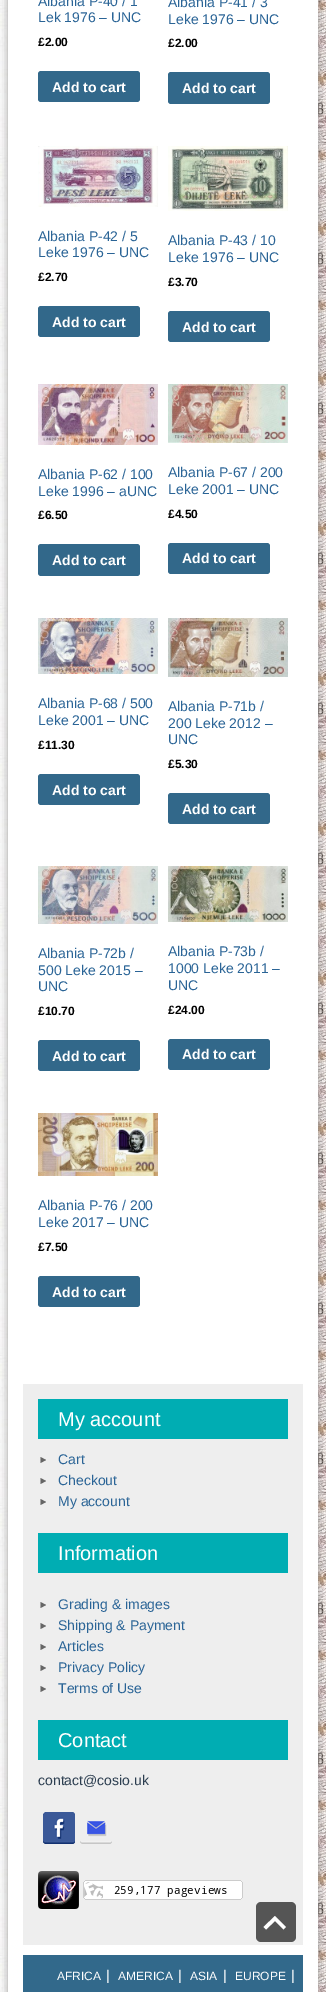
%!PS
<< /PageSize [326 1992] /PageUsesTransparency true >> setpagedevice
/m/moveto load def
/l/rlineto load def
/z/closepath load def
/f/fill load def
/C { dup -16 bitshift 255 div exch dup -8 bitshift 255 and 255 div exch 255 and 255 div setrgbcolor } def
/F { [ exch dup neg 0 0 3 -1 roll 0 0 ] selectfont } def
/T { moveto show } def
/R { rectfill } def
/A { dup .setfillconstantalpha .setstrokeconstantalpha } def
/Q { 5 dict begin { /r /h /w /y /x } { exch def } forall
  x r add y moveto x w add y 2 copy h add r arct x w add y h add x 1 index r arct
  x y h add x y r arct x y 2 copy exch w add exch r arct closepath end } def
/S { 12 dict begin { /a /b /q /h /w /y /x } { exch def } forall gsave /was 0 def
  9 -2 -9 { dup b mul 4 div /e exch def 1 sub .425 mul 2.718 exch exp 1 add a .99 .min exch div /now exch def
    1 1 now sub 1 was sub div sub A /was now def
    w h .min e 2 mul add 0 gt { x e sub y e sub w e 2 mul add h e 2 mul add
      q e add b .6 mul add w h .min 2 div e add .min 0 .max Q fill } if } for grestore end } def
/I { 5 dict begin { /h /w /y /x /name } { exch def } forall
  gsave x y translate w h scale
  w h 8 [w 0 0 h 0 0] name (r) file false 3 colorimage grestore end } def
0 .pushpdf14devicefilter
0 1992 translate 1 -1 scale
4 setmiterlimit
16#FFFFFF C
0 0 326 1992 R
(1.rgb) 0 0 326 1992 I
16#999999 C
8 -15 310 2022 0 5 1 S
16#FFFFFF C
8 0 310 1992 R
/LiberationSans-Regular 14 F
16#2A6496 C
(Albania P-40 / 1) 38 6 T
(Lek 1976 – UNC) 38 22 T
/LiberationSans-Bold 12 F
16#000000 C
(£2.00) 38 46 T
16#32688A C
38 71 102 31 3 Q f
/LiberationSans-Bold 14 F
16#FFFFFF C
(Add to cart) 52 92 T
/LiberationSans-Regular 14 F
16#2A6496 C
(Albania P-41 / 3) 168 7 T
(Leke 1976 – UNC) 168 24 T
/LiberationSans-Bold 12 F
16#000000 C
(£2.00) 168 47 T
16#32688A C
168 72 102 32 3 Q f
/LiberationSans-Bold 14 F
16#FFFFFF C
(Add to cart) 182 93 T
(2.rgb) 38 146 120 61 I
/LiberationSans-Regular 14 F
16#2A6496 C
(Albania P-42 / 5) 38 241 T
(Leke 1976 – UNC) 38 257 T
/LiberationSans-Bold 12 F
16#000000 C
(£2.70) 38 281 T
16#32688A C
38 306 102 31 3 Q f
/LiberationSans-Bold 14 F
16#FFFFFF C
(Add to cart) 52 327 T
(3.rgb) 168 146 120 65 I
/LiberationSans-Regular 14 F
16#2A6496 C
(Albania P-43 / 10) 168 245 T
(Leke 1976 – UNC) 168 262 T
/LiberationSans-Bold 12 F
16#000000 C
(£3.70) 168 286 T
16#32688A C
168 311 102 31 3 Q f
/LiberationSans-Bold 14 F
16#FFFFFF C
(Add to cart) 182 332 T
(4.rgb) 38 384 120 61 I
/LiberationSans-Regular 14 F
16#2A6496 C
(Albania P-62 / 100) 38 479 T
(Leke 1996 – aUNC) 38 496 T
/LiberationSans-Bold 12 F
16#000000 C
(£6.50) 38 519 T
16#32688A C
38 544 102 32 3 Q f
/LiberationSans-Bold 14 F
16#FFFFFF C
(Add to cart) 52 565 T
(5.rgb) 168 384 120 59 I
/LiberationSans-Regular 14 F
16#2A6496 C
(Albania P-67 / 200) 168 477 T
(Leke 2001 – UNC) 168 494 T
/LiberationSans-Bold 12 F
16#000000 C
(£4.50) 168 518 T
16#32688A C
168 543 102 31 3 Q f
/LiberationSans-Bold 14 F
16#FFFFFF C
(Add to cart) 182 563 T
(6.rgb) 38 618 120 56 I
/LiberationSans-Regular 14 F
16#2A6496 C
(Albania P-68 / 500) 38 708 T
(Leke 2001 – UNC) 38 725 T
/LiberationSans-Bold 12 F
16#000000 C
(£11.30) 38 749 T
16#32688A C
38 774 102 31 3 Q f
/LiberationSans-Bold 14 F
16#FFFFFF C
(Add to cart) 52 795 T
(7.rgb) 168 618 120 59 I
/LiberationSans-Regular 14 F
16#2A6496 C
(Albania P-71b /) 168 711 T
(200 Leke 2012 –) 168 728 T
(UNC) 168 744 T
/LiberationSans-Bold 12 F
16#000000 C
(£5.30) 168 768 T
16#32688A C
168 793 102 31 3 Q f
/LiberationSans-Bold 14 F
16#FFFFFF C
(Add to cart) 182 814 T
(8.rgb) 38 866 120 58 I
/LiberationSans-Regular 14 F
16#2A6496 C
(Albania P-72b /) 38 958 T
(500 Leke 2015 –) 38 975 T
(UNC) 38 991 T
/LiberationSans-Bold 12 F
16#000000 C
(£10.70) 38 1015 T
16#32688A C
38 1040 102 31 3 Q f
/LiberationSans-Bold 14 F
16#FFFFFF C
(Add to cart) 52 1061 T
(9.rgb) 168 866 120 56 I
/LiberationSans-Regular 14 F
16#2A6496 C
(Albania P-73b /) 168 956 T
(1000 Leke 2011 –) 168 973 T
(UNC) 168 990 T
/LiberationSans-Bold 12 F
16#000000 C
(£24.00) 168 1014 T
16#32688A C
168 1039 102 31 3 Q f
/LiberationSans-Bold 14 F
16#FFFFFF C
(Add to cart) 182 1059 T
(10.rgb) 38 1113 120 63 I
/LiberationSans-Regular 14 F
16#2A6496 C
(Albania P-76 / 200) 38 1210 T
(Leke 2017 – UNC) 38 1227 T
/LiberationSans-Bold 12 F
16#000000 C
(£7.50) 38 1251 T
16#32688A C
38 1276 102 31 3 Q f
/LiberationSans-Bold 14 F
16#FFFFFF C
(Add to cart) 52 1297 T
16#EEEEEE C
23 1384 280 561 R
16#00ADB3 C
38 1399 250 40 R
/LiberationSans-Regular 20 F
16#FFFFFF C
(My account) 58 1426 T
16#666666 C
40.5 1457 m 5.5 3 l -5.5 3 l z f
/LiberationSans-Regular 14 F
16#2A6496 C
(Cart) 58 1464 T
16#666666 C
40.5 1478 m 5.5 3 l -5.5 3 l z f
16#2A6496 C
(Checkout) 58 1485 T
16#666666 C
40.5 1499 m 5.5 3 l -5.5 3 l z f
16#2A6496 C
(My account) 58 1506 T
16#00ADB3 C
38 1533 250 40 R
/LiberationSans-Regular 20 F
16#FFFFFF C
(Information) 58 1560 T
16#666666 C
40.5 1602 m 5.5 3 l -5.5 3 l z f
/LiberationSans-Regular 14 F
16#2A6496 C
(Grading & images) 58 1609 T
16#666666 C
40.5 1623 m 5.5 3 l -5.5 3 l z f
16#2A6496 C
(Shipping & Payment) 58 1630 T
16#666666 C
40.5 1644 m 5.5 3 l -5.5 3 l z f
16#2A6496 C
(Articles) 58 1651 T
16#666666 C
40.5 1665 m 5.5 3 l -5.5 3 l z f
16#2A6496 C
(Privacy Policy) 58 1672 T
16#666666 C
40.5 1686 m 5.5 3 l -5.5 3 l z f
16#2A6496 C
(Terms of Use) 58 1693 T
16#00ADB3 C
38 1720 250 40 R
/LiberationSans-Regular 20 F
16#FFFFFF C
(Contact) 58 1747 T
/LiberationSans-Regular 14 F
16#2C3E50 C
(contact@cosio.uk) 38 1785 T
(11.rgb) 43 1812 32 32 I
(12.rgb) 80 1820 32 24 I
(13.rgb) 38 1871 41 38 I
(14.rgb) 83 1880 160 20 I
16#32698B C
23 1955 280 37 R
/LiberationSans-Regular 12 F
16#FFFFFF C
(AFRICA) 57 1980 T
/LiberationSans-Regular 14 F
(|) 106 1980 T
/LiberationSans-Regular 12 F
(AMERICA) 118 1980 T
/LiberationSans-Regular 14 F
(|) 178 1980 T
/LiberationSans-Regular 12 F
(ASIA) 190 1980 T
/LiberationSans-Regular 14 F
(|) 223 1980 T
/LiberationSans-Regular 12 F
(EUROPE) 235 1980 T
/LiberationSans-Regular 14 F
(|) 291 1980 T
16#555555 C
256 1902 40 40 5 Q f
16#FFFFFF C
283.5 1929.5 m -8.5 -8.5 l -9 8.5 l -2.5 -2.5 l 11.5 -11 l 11 11 l z f
.poppdf14devicefilter showpage
